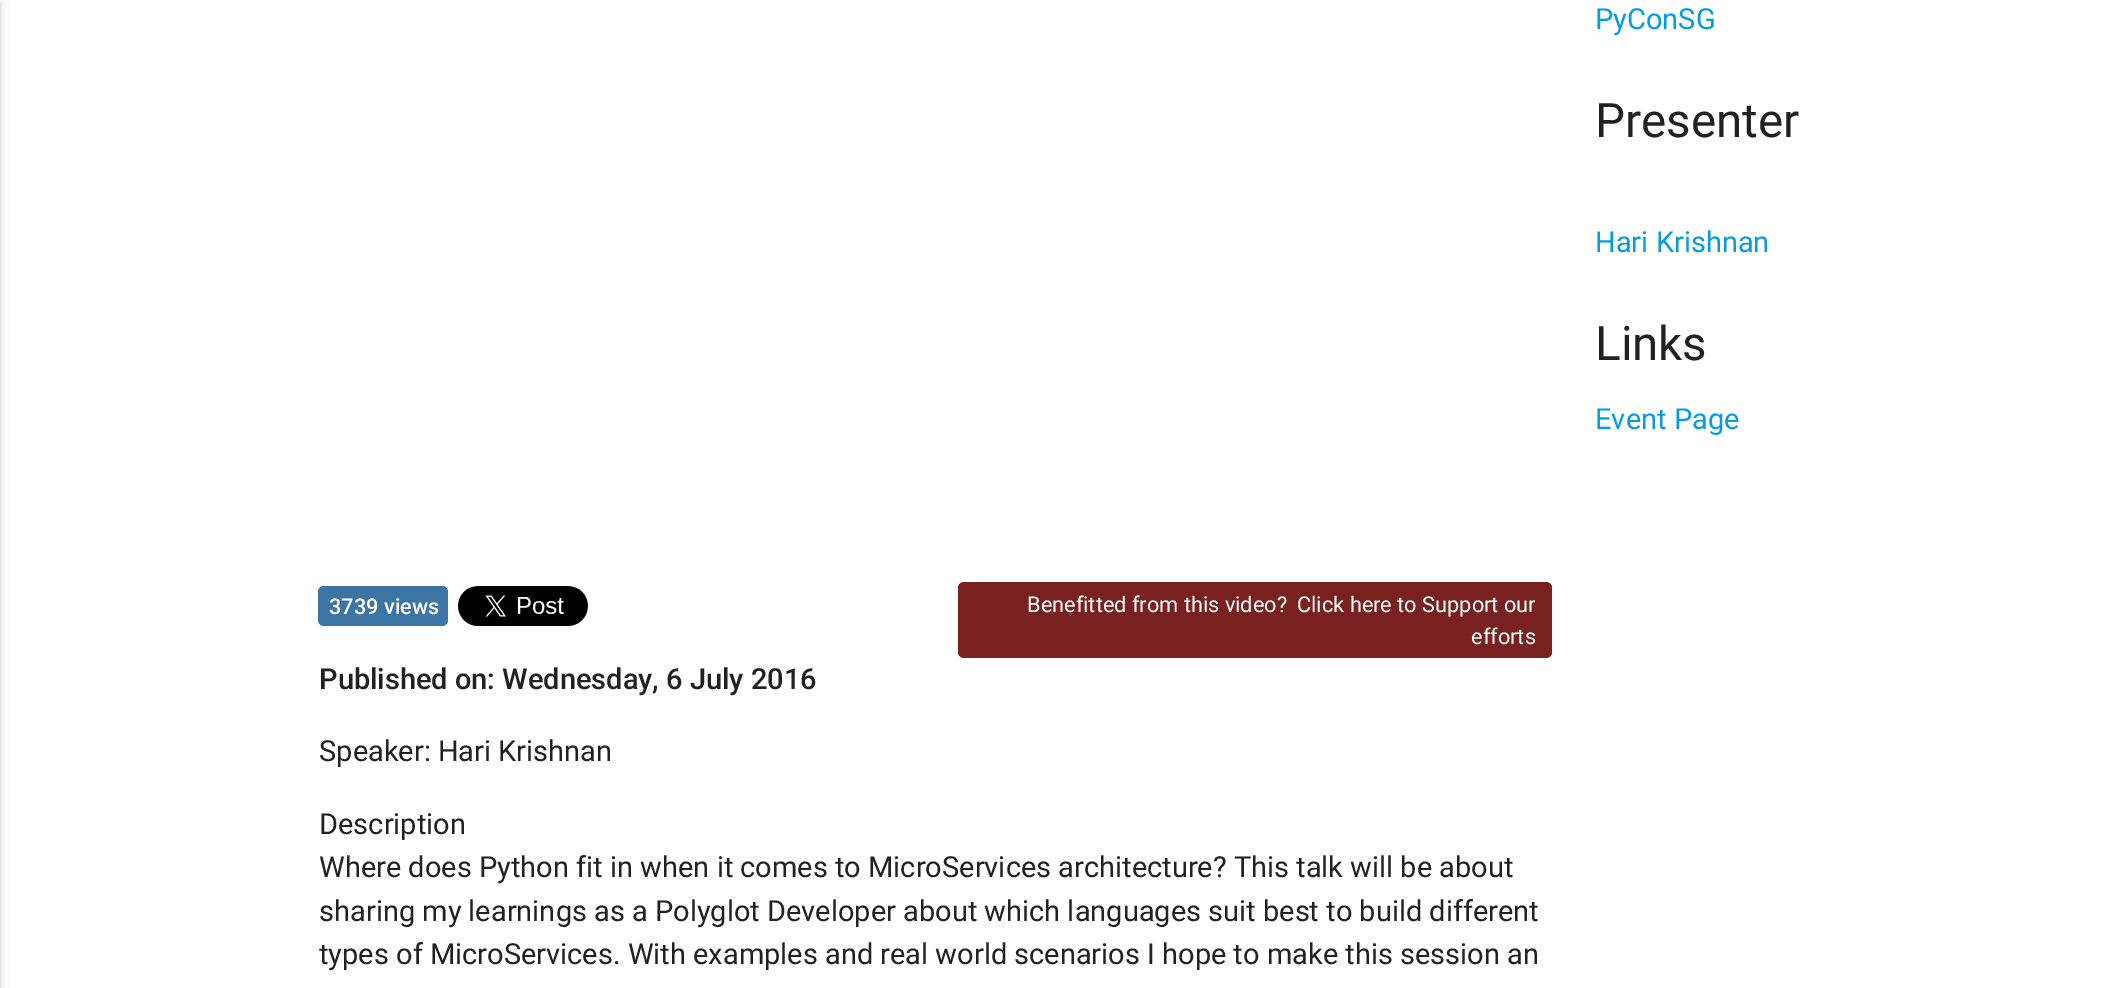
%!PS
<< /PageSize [2126 988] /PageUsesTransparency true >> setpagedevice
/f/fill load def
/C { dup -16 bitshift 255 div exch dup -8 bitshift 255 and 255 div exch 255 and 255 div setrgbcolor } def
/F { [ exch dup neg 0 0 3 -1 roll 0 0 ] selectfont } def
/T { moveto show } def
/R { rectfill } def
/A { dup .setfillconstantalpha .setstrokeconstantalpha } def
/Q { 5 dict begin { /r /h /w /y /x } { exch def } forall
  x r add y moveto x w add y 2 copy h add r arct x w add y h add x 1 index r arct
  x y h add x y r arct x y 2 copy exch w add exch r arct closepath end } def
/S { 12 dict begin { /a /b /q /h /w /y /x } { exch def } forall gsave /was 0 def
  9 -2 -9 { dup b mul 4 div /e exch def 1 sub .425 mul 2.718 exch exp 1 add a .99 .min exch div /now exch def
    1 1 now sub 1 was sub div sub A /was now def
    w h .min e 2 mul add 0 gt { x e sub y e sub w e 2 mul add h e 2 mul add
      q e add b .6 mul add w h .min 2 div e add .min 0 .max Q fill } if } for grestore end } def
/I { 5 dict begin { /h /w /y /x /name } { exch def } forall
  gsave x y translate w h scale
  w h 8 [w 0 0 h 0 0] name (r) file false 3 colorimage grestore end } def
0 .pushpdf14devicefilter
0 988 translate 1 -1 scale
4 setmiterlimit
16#FFFFFF C
0 0 2126 988 R
16#000000 C
-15 2 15 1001 0 5 .12 S
-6 4 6 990 0 2 .14 S
/Roboto-Regular 29 F
16#039BE5 C
(PyConSG) 1595 29 T
/Roboto-Regular 47.5 F
16#212121 C
(Presenter) 1595 137 T
/Roboto-Regular 29 F
16#039BE5 C
(Hari Krishnan) 1595 252 T
/Roboto-Regular 47.5 F
16#212121 C
(Links) 1595 360 T
/Roboto-Regular 29 F
16#039BE5 C
(Event Page) 1595 429 T
16#3C74A3 C
318 586 130 40 6 Q f
/Roboto-Medium 21.75 F
16#FEFEFE C
(3739 views) 329 614 T
(1.rgb) 458 586 130 40 I
16#78211F C
958 582 594 76 6 Q f
/Roboto-Regular 21.75 F
16#FEFEFE C
(Benefitted from this video?) 1027 612 T
(Click here to Support our) 1297 612 T
(efforts) 1471 644 T
/Roboto-Medium 29 F
16#212121 C
(Published on: Wednesday, 6 July 2016) 319 689 T
/Roboto-Regular 29 F
(Speaker: Hari Krishnan) 319 761 T
(Description) 319 834 T
(Where does Python fit in when it comes to MicroServices architecture? This talk will be about) 319 877 T
(sharing my learnings as a Polyglot Developer about which languages suit best to build different) 319 921 T
(types of MicroServices. With examples and real world scenarios I hope to make this session an) 319 964 T
.poppdf14devicefilter showpage
